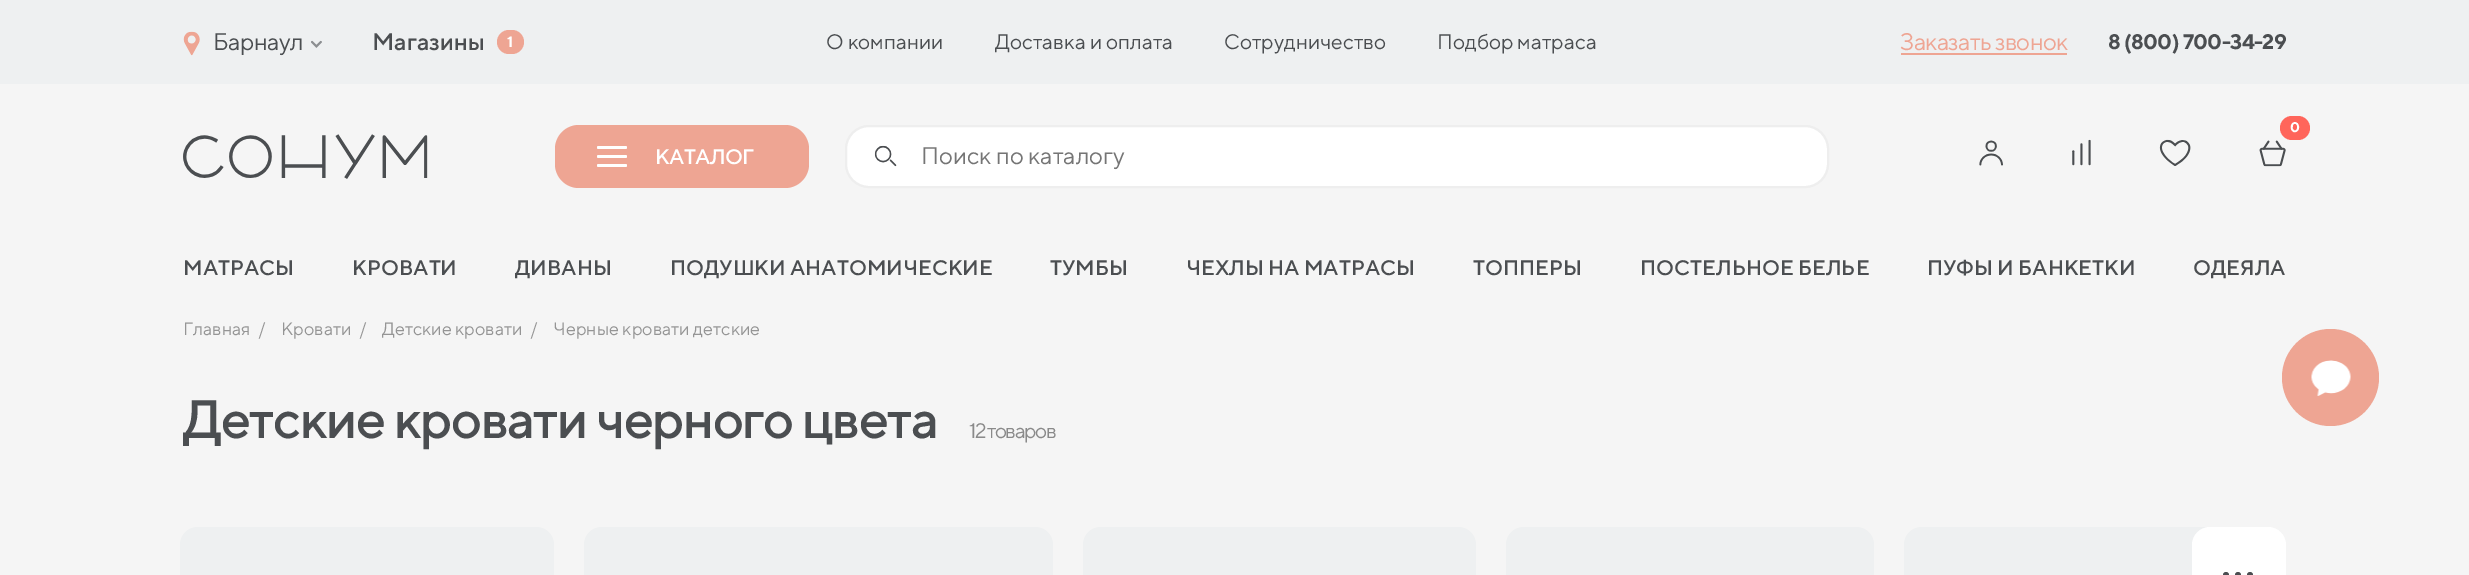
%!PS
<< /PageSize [2469 575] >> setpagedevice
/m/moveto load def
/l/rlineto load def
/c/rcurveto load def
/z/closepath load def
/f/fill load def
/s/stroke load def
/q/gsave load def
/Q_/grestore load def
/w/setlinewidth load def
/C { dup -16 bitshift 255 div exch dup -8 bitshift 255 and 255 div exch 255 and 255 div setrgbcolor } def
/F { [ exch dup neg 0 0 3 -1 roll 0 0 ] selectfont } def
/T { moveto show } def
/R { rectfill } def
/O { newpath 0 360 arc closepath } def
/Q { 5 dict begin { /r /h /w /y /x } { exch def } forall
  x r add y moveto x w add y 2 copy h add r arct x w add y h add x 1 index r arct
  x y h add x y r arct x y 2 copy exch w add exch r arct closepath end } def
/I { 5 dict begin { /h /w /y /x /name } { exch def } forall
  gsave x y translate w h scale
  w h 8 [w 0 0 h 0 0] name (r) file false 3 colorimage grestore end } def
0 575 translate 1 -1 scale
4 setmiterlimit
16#F5F5F5 C
0 0 2469 575 R
16#EEF0F1 C
0 0 2469 84 R
(1.rgb) 183 31 17 25 I
/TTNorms-Regular 24 F
16#4B4E51 C
213 50 m -.5 0 (Барнаул) ashow
(2.rgb) 311 40 11 8 I
/TTNorms-Medium 24 F
(Магазины) 372 50 T
16#EEA593 C
497 30 27 24 12 Q f
/TTNorms-Bold 15 F
16#FFFFFF C
(1) 507 47 T
/TTNorms-Regular 21 F
16#4B4E51 C
(О компании) 826 49 T
(Доставка и оплата) 995 49 T
(Сотрудничество) 1224 49 T
(Подбор матраса) 1437 49 T
/TTNorms-Regular 24 F
16#EEA593 C
1900 50 m -.75 0 (Заказать звонок) ashow
1901 53 166 2 R
/TTNorms-Bold 21 F
16#4B4E51 C
2108 49 m -.6 0 (8 \(800\) 700-34-29) ashow
16#FF655B C
2280 116 30 24 12 Q f
/TTNorms-Bold 14 F
16#FFFFFF C
(0) 2290 132 T
(3.rgb) 2259 140 27 27 I
(4.rgb) 1979 140 24 26 I
(5.rgb) 2072 139 19 27 I
(6.rgb) 2159 139 32 27 I
(7.rgb) 183 134 245 45 I
16#EEA593 C
555 125 254 63 24 Q f
16#FFFFFF C
597 155 30 3 1.5 Q f
597 146 30 3 1.5 Q f
597 164 30 3 1.5 Q f
/TTNorms-Medium 21 F
655 164 m -.6 0 (КАТАЛОГ) ashow
846 126 982 61 23 Q q f Q_
16#EEEEEE C
2 w
s
(8.rgb) 874 145 23 22 I
/TTNorms-Regular 24 F
16#757575 C
(Поиск по каталогу) 921 164 T
/TTNorms-Medium 21 F
16#4B4E51 C
(МАТРАСЫ) 183 275 T
(КРОВАТИ) 352 275 T
(ДИВАНЫ) 515 275 T
(ПОДУШКИ АНАТОМИЧЕСКИЕ) 670 275 T
(ТУМБЫ) 1050 275 T
(ЧЕХЛЫ НА МАТРАСЫ) 1186 275 T
(ТОППЕРЫ) 1473 275 T
(ПОСТЕЛЬНОЕ БЕЛЬЕ) 1640 275 T
(ПУФЫ И БАНКЕТКИ) 1927 275 T
(ОДЕЯЛА) 2193 275 T
/TTNorms-Regular 18 F
16#959595 C
(Главная) 183 335 T
(/) 258 335 T
(Кровати) 281 335 T
(/) 359 335 T
(Детские кровати) 382 335 T
(/) 530 335 T
(Черные кровати детские) 553 335 T
/TTNorms-Medium 54 F
16#4B4E51 C
183 438 m -1.6 0 (Детские кровати черного цвета) ashow
/TTNorms-Regular 21 F
16#8A8A8A C
969 438 m -1.6 0 (12 товаров) ashow
16#EEF0F1 C
180 527 374 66 18 Q f
584 527 469 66 18 Q f
1083 527 393 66 18 Q f
1506 527 368 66 18 Q f
1922 527 m 331 0 l 0 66 l -331 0 l -10 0 -18 -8 -18 -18 c 0 -30 l 0 -10 8 -18 18 -18 c z f
16#FFFFFF C
2192 527 94 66 18 Q f
16#4B4E51 C
2226 575 3 O f
2238 575 3 O f
2250 575 3 O f
16#EEA593 C
2330.5 377.5 48.5 O f
(9.rgb) 2311 360 40 36 I
showpage
